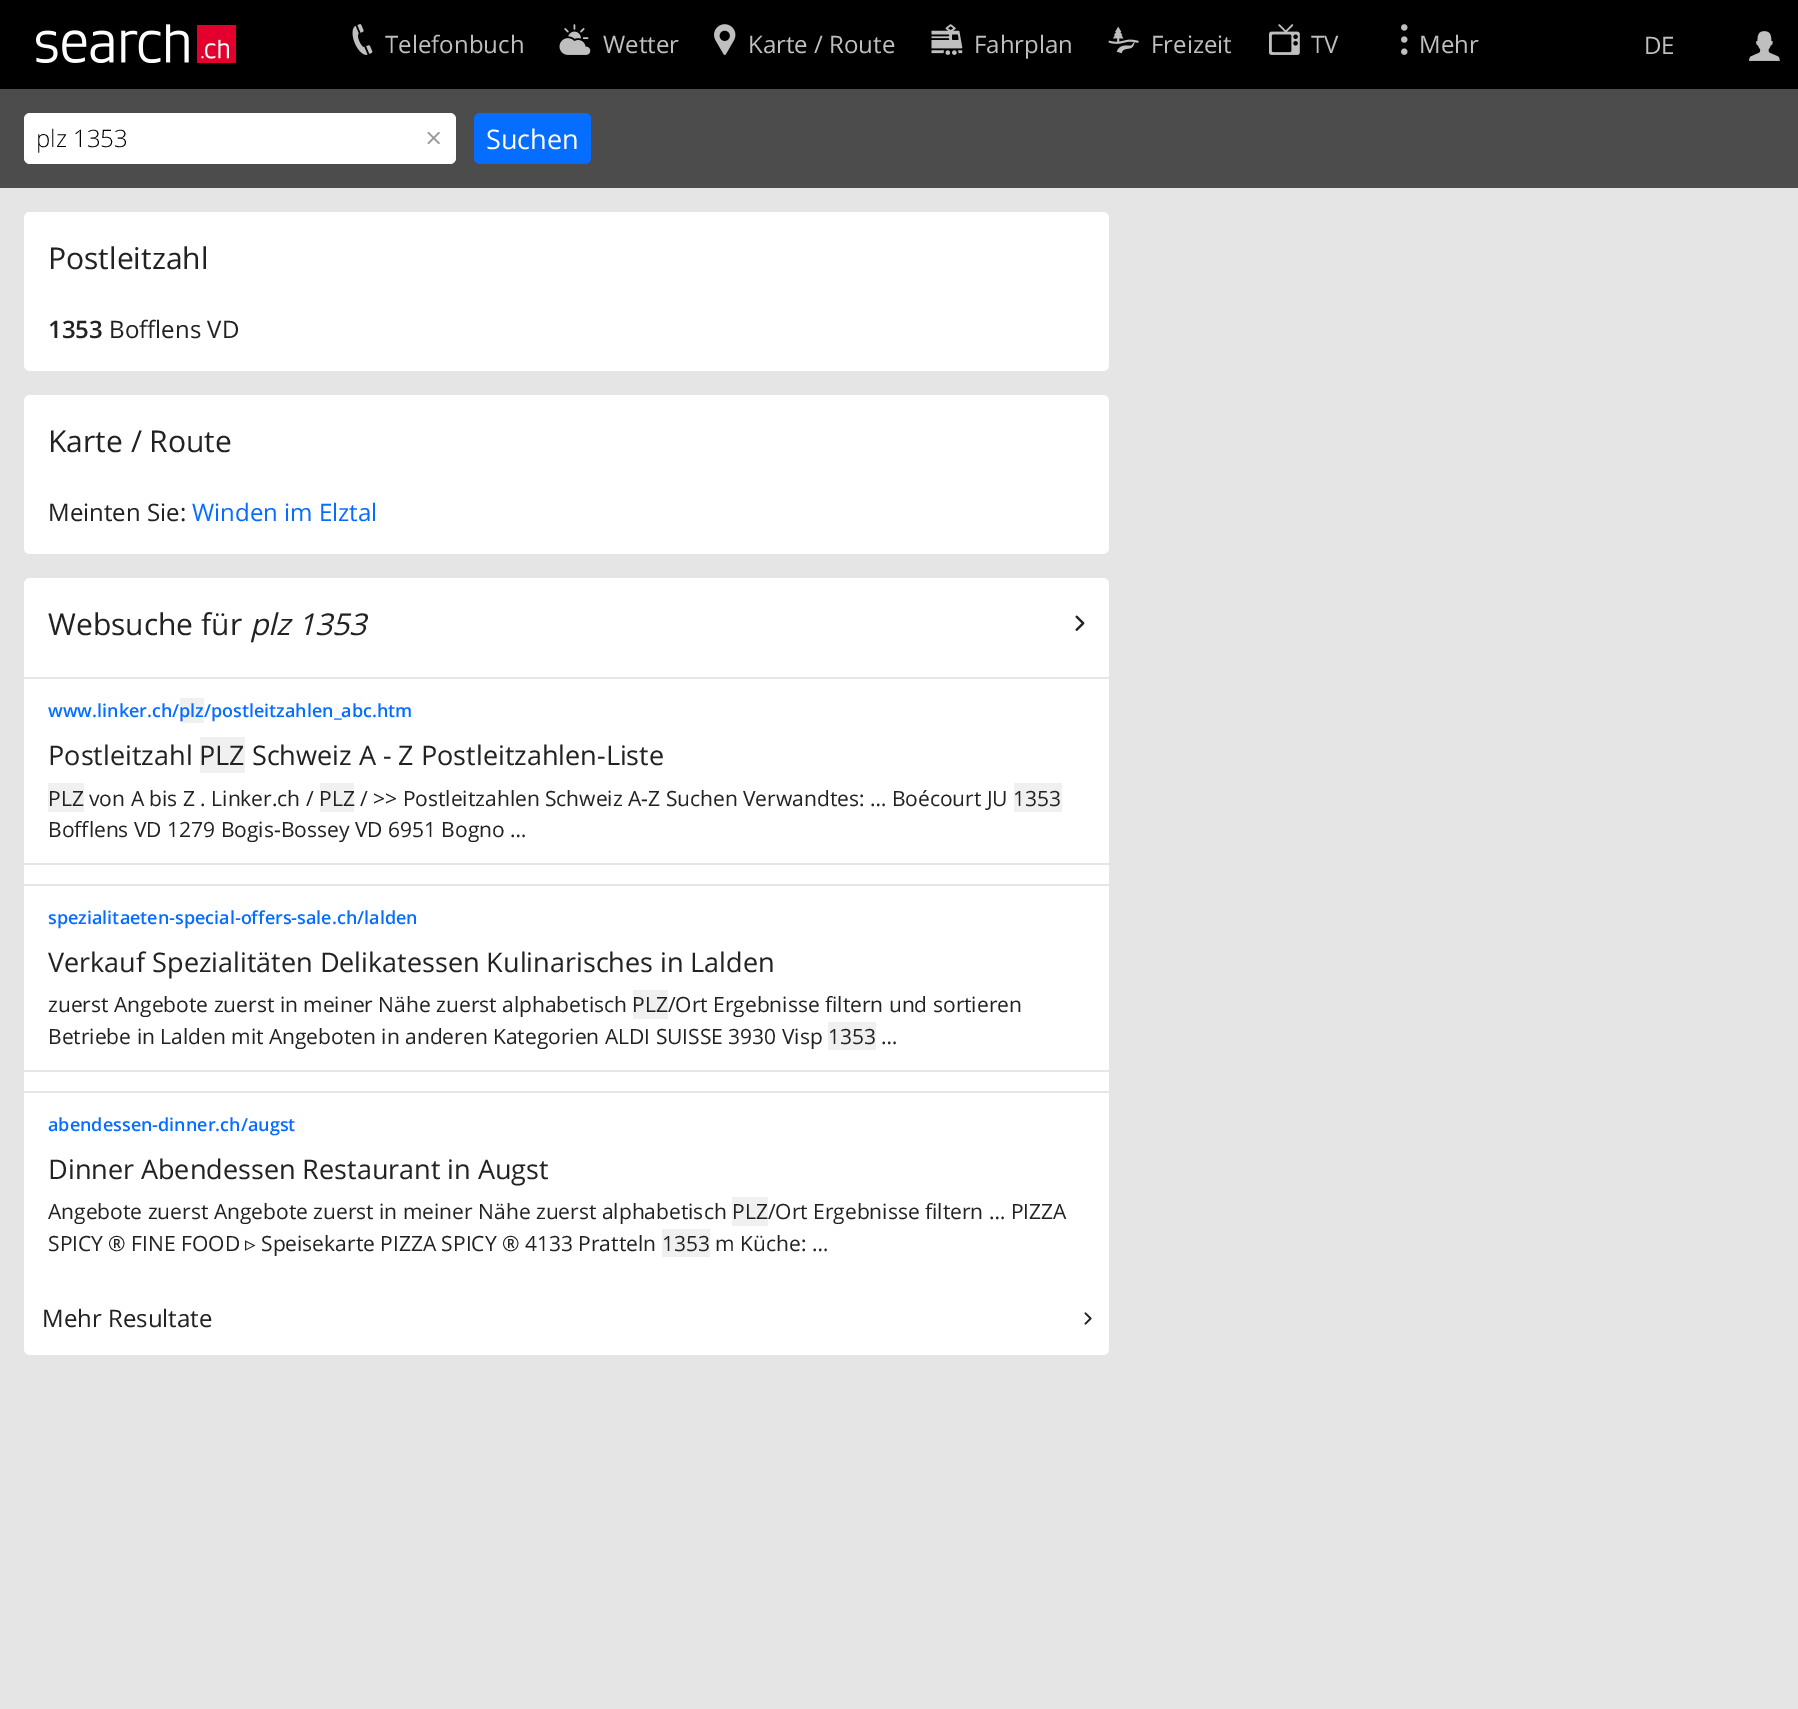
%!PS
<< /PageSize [1798 1709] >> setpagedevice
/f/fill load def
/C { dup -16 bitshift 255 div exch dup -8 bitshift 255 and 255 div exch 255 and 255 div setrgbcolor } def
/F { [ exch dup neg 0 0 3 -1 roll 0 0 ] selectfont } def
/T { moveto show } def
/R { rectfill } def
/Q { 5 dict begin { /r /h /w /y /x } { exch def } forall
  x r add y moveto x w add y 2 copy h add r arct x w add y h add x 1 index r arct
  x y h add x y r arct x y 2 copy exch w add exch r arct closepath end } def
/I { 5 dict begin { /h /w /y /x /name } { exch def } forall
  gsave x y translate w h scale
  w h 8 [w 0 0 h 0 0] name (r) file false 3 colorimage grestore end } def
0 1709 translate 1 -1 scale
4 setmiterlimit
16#E5E5E5 C
0 0 1798 1709 R
16#000000 C
0 0 1798 89 R
(1.rgb) 36 24 200 39 I
(2.rgb) 352 24 21 31 I
/OpenSans-Regular 24 F
16#BFBFBF C
(Telefonbuch) 385 53 T
(3.rgb) 559 24 32 31 I
(Wetter) 603 53 T
(4.rgb) 714 24 22 31 I
(Karte / Route) 748 53 T
(5.rgb) 931 24 32 31 I
(Fahrplan) 974 53 T
(6.rgb) 1108 26 31 28 I
(Freizeit) 1151 53 T
(7.rgb) 1269 24 31 31 I
(TV) 1311 53 T
(8.rgb) 1401 24 7 31 I
(Mehr) 1419 53 T
(DE) 1644 54 T
(9.rgb) 1749 31 31 30 I
16#4C4C4C C
0 89 1798 99 R
16#FFFFFF C
24 113 432 51 6 Q f
/OpenSans-Light 24 F
16#000000 C
(plz 1353) 36 147 T
(10.rgb) 427 131 13 14 I
16#056DFF C
474 113 117 51 6 Q f
/OpenSans-Regular 27 F
16#FFFFFF C
(Suchen) 486 149 T
24 212 1085 159 6 Q f
/OpenSans-Regular 30 F
16#222222 C
(Postleitzahl) 48 269 T
/OpenSans-SemiBold 24 F
(1353) 48 338 T
/OpenSans-Regular 24 F
(Bofflens VD) 109 338 T
16#FFFFFF C
24 395 1085 159 6 Q f
/OpenSans-Regular 30 F
16#222222 C
(Karte / Route) 48 452 T
/OpenSans-Regular 24 F
(Meinten Sie:) 48 521 T
16#056DFF C
(Winden im Elztal) 192 521 T
16#FFFFFF C
24 578 1085 777 6 Q f
/OpenSans-Regular 30 F
16#222222 C
(Websuche für) 48 635 T
/OpenSans-Italic 30 F
(plz 1353) 250 635 T
(11.rgb) 1075 615 10 16 I
16#E6E6E6 C
24 677 1085 2 R
24 863 1085 2 R
/OpenSans-SemiBold 18 F
16#056DFF C
(www.linker.ch/) 48 717 T
16#F0F0F0 C
180 698 24 25 R
16#056DFF C
(plz/postleitzahlen_abc.htm) 179 717 T
/OpenSans-Regular 27 F
16#222222 C
(Postleitzahl) 48 765 T
16#F0F0F0 C
200 737 45 36 R
16#222222 C
(PLZ Schweiz A - Z Postleitzahlen-Liste) 199 765 T
16#F0F0F0 C
48 783 36 29 R
/OpenSans-Regular 21 F
16#222222 C
(PLZ von A bis Z . Linker.ch /) 48 806 T
16#F0F0F0 C
320 783 34 29 R
16#222222 C
(PLZ / >> Postleitzahlen Schweiz A-Z Suchen Verwandtes: … Boécourt JU) 319 806 T
16#F0F0F0 C
1014 783 48 29 R
16#222222 C
(1353) 1013 806 T
(Bofflens VD 1279 Bogis-Bossey VD 6951 Bogno …) 48 837 T
16#E6E6E6 C
24 884 1085 2 R
24 1070 1085 2 R
/OpenSans-SemiBold 18 F
16#056DFF C
(spezialitaeten-special-offers-sale.ch/lalden) 48 924 T
/OpenSans-Regular 27 F
16#222222 C
(Verkauf Spezialitäten Delikatessen Kulinarisches in Lalden) 48 972 T
/OpenSans-Regular 21 F
(zuerst Angebote zuerst in meiner Nähe zuerst alphabetisch) 48 1012 T
16#F0F0F0 C
633 990 35 29 R
16#222222 C
(PLZ/Ort Ergebnisse filtern und sortieren) 632 1012 T
(Betriebe in Lalden mit Angeboten in anderen Kategorien ALDI SUISSE 3930 Visp) 48 1044 T
16#F0F0F0 C
828 1022 48 28 R
16#222222 C
(1353 …) 828 1044 T
16#E6E6E6 C
24 1091 1085 2 R
/OpenSans-SemiBold 18 F
16#056DFF C
(abendessen-dinner.ch/augst) 48 1131 T
/OpenSans-Regular 27 F
16#222222 C
(Dinner Abendessen Restaurant in Augst) 48 1179 T
/OpenSans-Regular 21 F
(Angebote zuerst Angebote zuerst in meiner Nähe zuerst alphabetisch) 48 1219 T
16#F0F0F0 C
732 1197 36 29 R
16#222222 C
(PLZ/Ort Ergebnisse filtern … PIZZA) 732 1219 T
(SPICY ® FINE FOOD) 48 1251 T
/DejaVuSans-Regular 21 F
(▹) 245 1251 T
/OpenSans-Regular 21 F
(Speisekarte PIZZA SPICY ® 4133 Pratteln) 261 1251 T
16#F0F0F0 C
662 1229 48 28 R
16#222222 C
(1353 m Küche: …) 662 1251 T
/OpenSans-Regular 24 F
(Mehr Resultate) 42 1327 T
(12.rgb) 1084 1312 8 13 I
showpage
